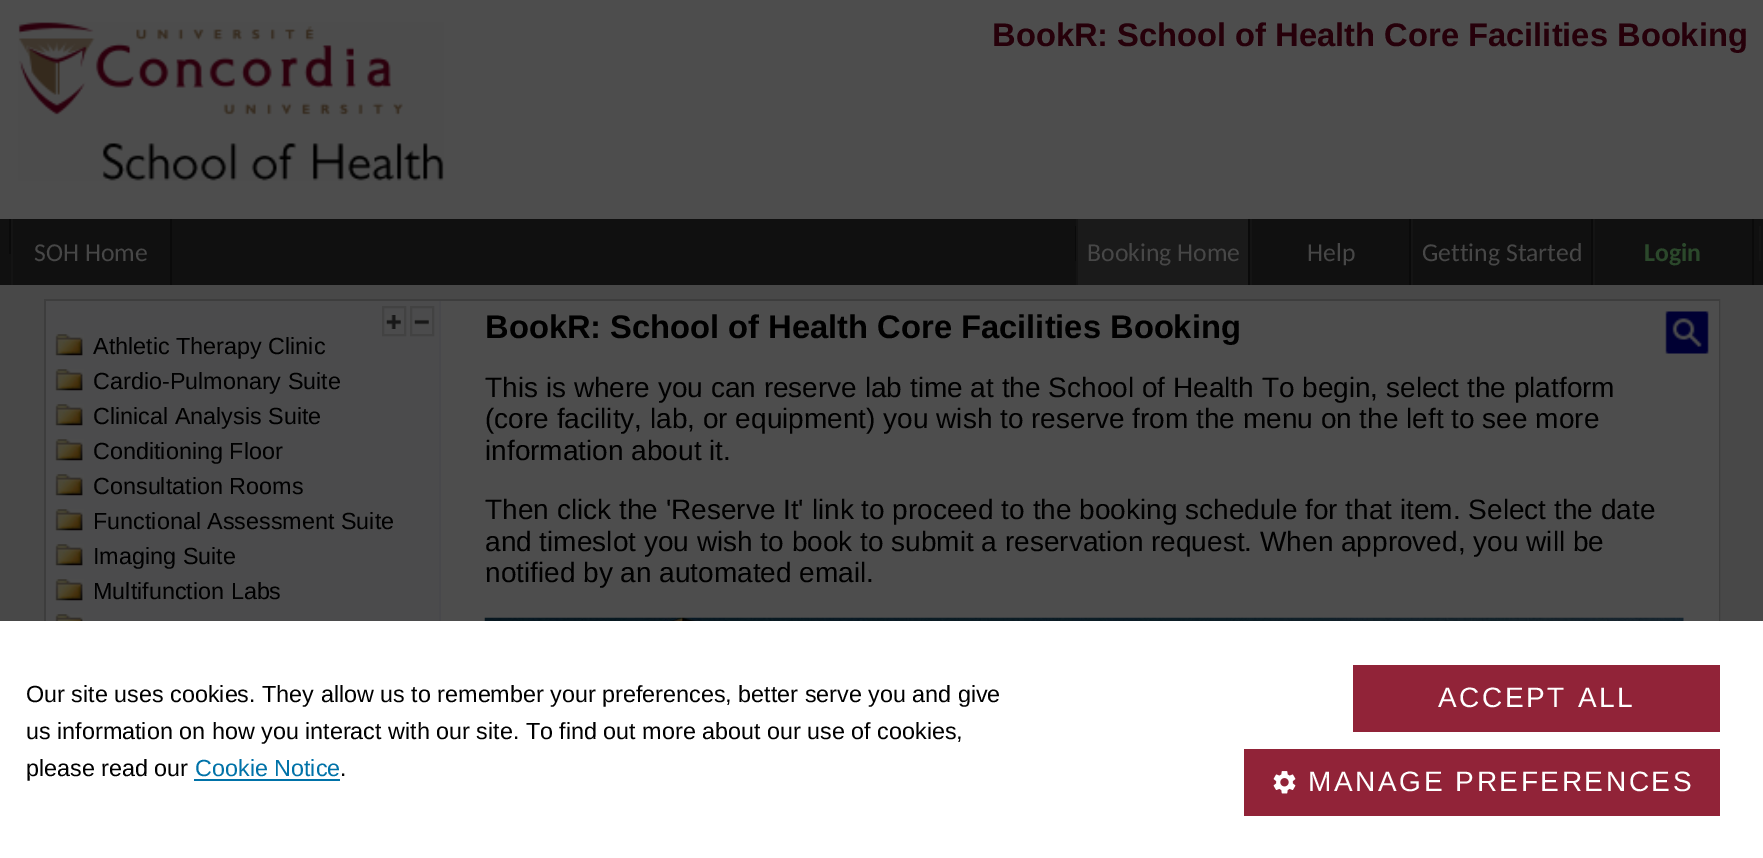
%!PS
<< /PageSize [1763 858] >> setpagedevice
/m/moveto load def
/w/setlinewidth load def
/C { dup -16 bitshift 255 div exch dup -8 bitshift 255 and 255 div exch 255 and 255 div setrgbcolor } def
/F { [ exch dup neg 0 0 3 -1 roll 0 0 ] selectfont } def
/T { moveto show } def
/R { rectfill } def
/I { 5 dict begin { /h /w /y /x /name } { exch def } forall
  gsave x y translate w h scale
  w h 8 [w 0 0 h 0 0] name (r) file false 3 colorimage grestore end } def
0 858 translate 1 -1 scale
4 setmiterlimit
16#484848 C
0 0 1763 858 R
16#4D4D4D C
0 0 1763 219 R
(1.rgb) 18 22 426 159 I
/LiberationSans-Bold 32.7 F
16#26000A C
(BookR: School of Health Core Facilities Booking) 992 46 T
16#101010 C
0 219 1763 66 R
16#0A0A0A C
9 219 2 35 R
170 219 2 66 R
16#141414 C
11 219 2 66 R
/Carlito-Regular 25.75 F
16#474747 C
(SOH Home) 34 261 T
16#0A0A0A C
1075 226 1 35 R
16#1A1A1A C
1078 219 170 66 R
16#0A0A0A C
1248 219 2 66 R
16#141414 C
1076 219 2 66 R
16#474747 C
(Booking Home) 1087 261 T
16#0A0A0A C
1409 219 2 66 R
16#141414 C
1250 219 2 66 R
16#474747 C
(Help) 1307 261 T
16#0A0A0A C
1591 219 2 66 R
16#141414 C
1411 219 2 66 R
16#474747 C
(Getting Started) 1422 261 T
16#0A0A0A C
1752 219 2 66 R
16#141414 C
1593 219 2 66 R
/Carlito-Bold 25.75 F
16#2B482B C
(Login) 1644 261 T
16#141414 C
1759 226 2 35 R
16#3D3D3D C
2 w
45 300 1674 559 rectstroke
16#4B4B4C C
46 301 393 320 R
16#48484B C
439 301 2 320 R
16#424242 C
383 307 22 28 rectstroke
(2.rgb) 386 315 15 14 I
411 307 22 28 rectstroke
(3.rgb) 414 319 15 6 I
(4.rgb) 55 334 29 22 I
/LiberationSans-Regular 23.35 F
16#000000 C
(Athletic Therapy Clinic) 93 354 T
(4.rgb) 55 369 29 22 I
(Cardio-Pulmonary Suite) 93 389 T
(4.rgb) 55 404 29 22 I
(Clinical Analysis Suite) 93 424 T
(4.rgb) 55 439 29 22 I
(Conditioning Floor) 93 459 T
(4.rgb) 55 474 29 22 I
(Consultation Rooms) 93 494 T
(4.rgb) 55 509 29 22 I
(Functional Assessment Suite) 93 529 T
(4.rgb) 55 544 29 22 I
(Imaging Suite) 93 564 T
(4.rgb) 55 579 29 22 I
(Multifunction Labs) 93 599 T
(5.rgb) 55 614 29 7 I
16#4D4D4D C
441 301 1278 320 R
/LiberationSans-Bold 32.7 F
16#000000 C
(BookR: School of Health Core Facilities Booking) 485 338 T
/LiberationSans-Regular 28 F
(This is where you can reserve lab time at the School of Health To begin, select the platform) 485 397 T
(\(core facility, lab, or equipment\) you wish to reserve from the menu on the left to see more) 485 428 T
(information about it.) 485 460 T
(Then click the 'Reserve It' link to proceed to the booking schedule for that item. Select the date) 485 519 T
(and timeslot you wish to book to submit a reservation request. When approved, you will be) 485 551 T
(notified by an automated email.) 485 582 T
(6.rgb) 484 617 1200 4 I
(7.rgb) 1665 311 44 43 I
16#FFFFFF C
0 621 1763 237 R
/LiberationSans-Regular 23.35 F
16#000000 C
(Our site uses cookies. They allow us to remember your preferences, better serve you and give) 26 702 T
(us information on how you interact with our site. To find out more about our use of cookies,) 26 739 T
(please read our) 26 776 T
16#0072A8 C
(Cookie Notice) 195 776 T
194 779 146 2 R
16#000000 C
(.) 340 776 T
16#912338 C
1353 665 367 67 R
/LiberationSans-Regular 28 F
16#FFFFFF C
1438 707 m 2.6 0 (ACCEPT ALL) ashow
16#912338 C
1244 749 476 67 R
(8.rgb) 1273 771 23 23 I
16#FFFFFF C
1308 791 m 2.6 0 (MANAGE PREFERENCES) ashow
showpage
